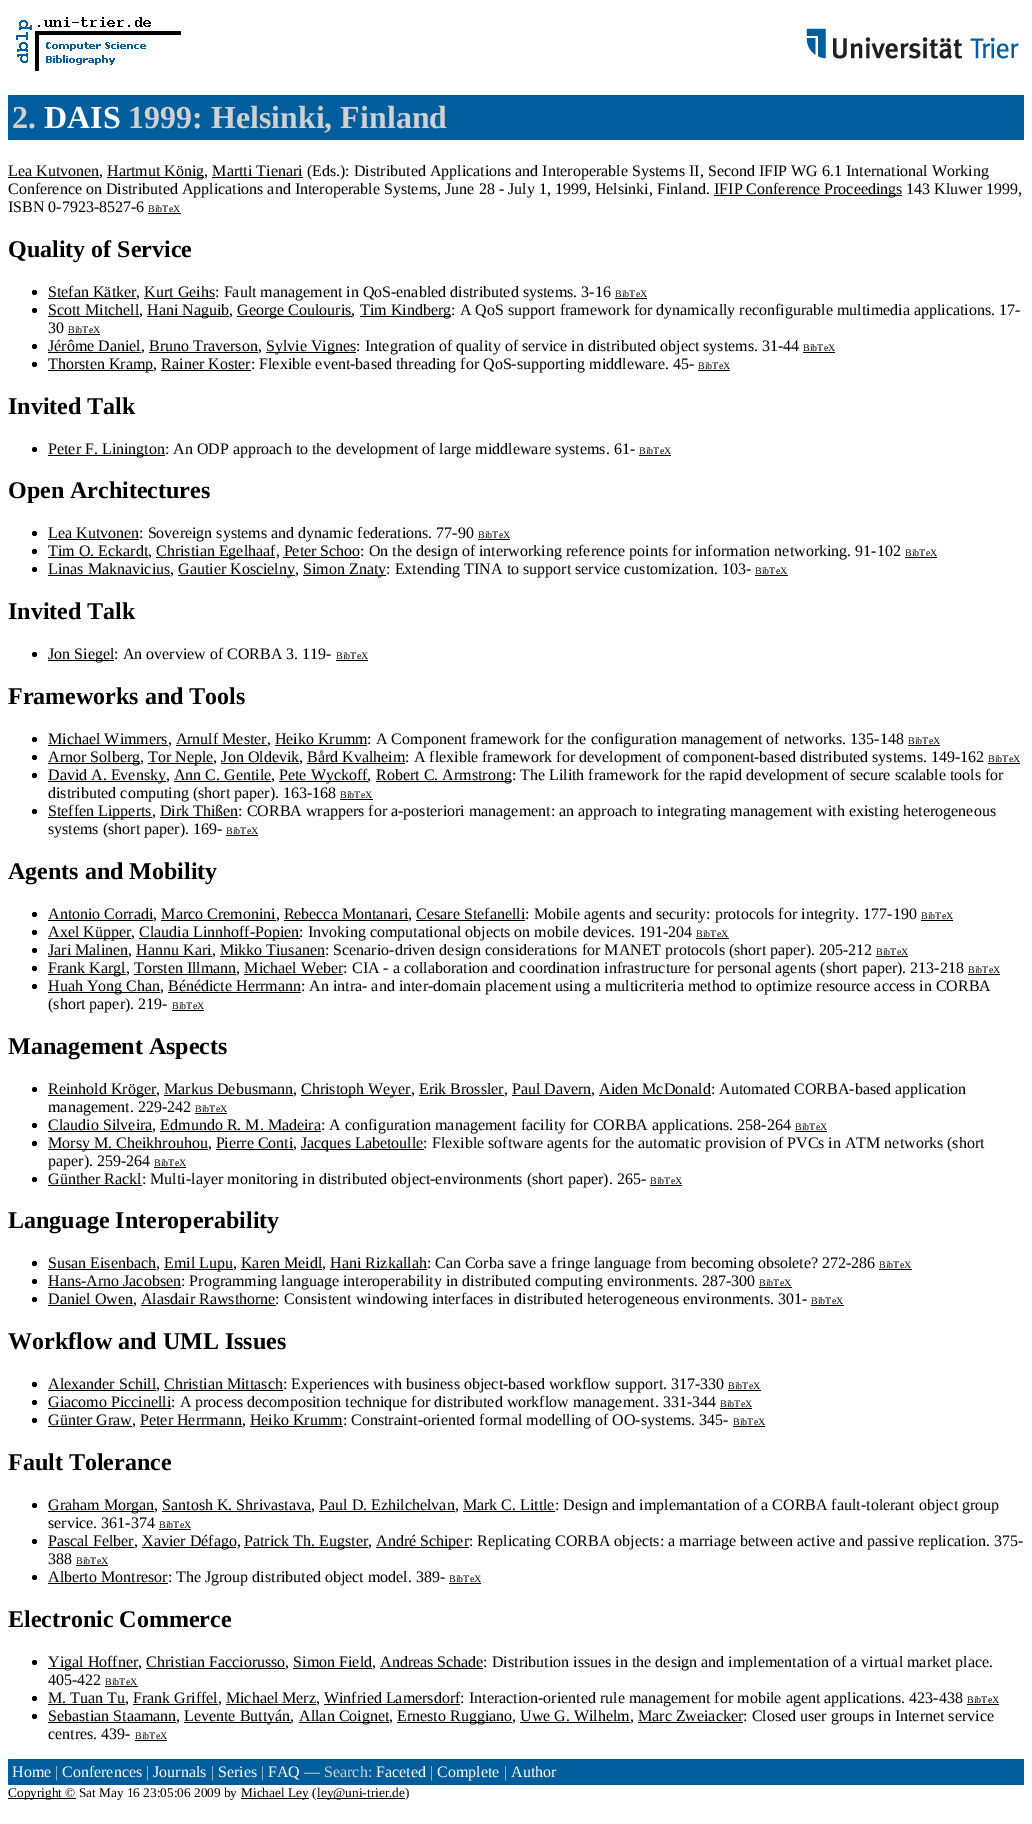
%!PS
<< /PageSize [1032 1824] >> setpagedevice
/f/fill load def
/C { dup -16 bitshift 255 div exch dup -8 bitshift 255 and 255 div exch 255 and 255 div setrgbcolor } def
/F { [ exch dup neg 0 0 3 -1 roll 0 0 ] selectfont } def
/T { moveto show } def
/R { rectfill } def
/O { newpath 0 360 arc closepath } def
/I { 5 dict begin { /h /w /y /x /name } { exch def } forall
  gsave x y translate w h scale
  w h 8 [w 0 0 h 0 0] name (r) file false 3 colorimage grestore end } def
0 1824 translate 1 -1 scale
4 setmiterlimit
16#FFFFFF C
0 0 1032 1824 R
(1.rgb) 16 17 165 54 I
(2.rgb) 806 24 213 35 I
16#005E9C C
8 95 1016 45 R
/LiberationSerif-Bold 32 F
16#D0D0D0 C
(2.) 12 128 T
16#FFFFFF C
(DAIS) 44 128 T
16#D0D0D0 C
(1999: Helsinki, Finland) 128 128 T
16#000000 C
8 177 91 1 R
/LiberationSerif-Regular 16 F
(Lea Kutvonen,) 8 176 T
107 177 97 1 R
(Hartmut König, Martti Tienari \(Eds.\): Distributed Applications and Interoperable Systems II, Second IFIP WG 6.1 International Working) 107 176 T
212 177 91 1 R
(Conference on Distributed Applications and Interoperable Systems, June 28 - July 1, 1999, Helsinki, Finland.) 8 194 T
714 195 188 1 R
(IFIP Conference Proceedings 143 Kluwer 1999,) 714 194 T
(ISBN 0-7923-8527-6) 8 212 T
/LiberationSerif-Regular 10 F
(BibTeX) 148 212 T
148 213 33 1 R
/LiberationSerif-Bold 24 F
(Quality of Service) 8 257 T
34.5 292.5 2.5 O f
48 298 88 1 R
/LiberationSerif-Regular 16 F
(Stefan Kätker, Kurt Geihs: Fault management in QoS-enabled distributed systems. 3-16) 48 297 T
/LiberationSerif-Regular 10 F
(BibTeX) 615 297 T
615 298 32 1 R
144 298 71 1 R
34.5 310.5 2.5 O f
48 316 91 1 R
/LiberationSerif-Regular 16 F
(Scott Mitchell,) 48 315 T
147 316 82 1 R
(Hani Naguib,) 147 315 T
237 316 115 1 R
(George Coulouris,) 237 315 T
360 316 91 1 R
(Tim Kindberg: A QoS support framework for dynamically reconfigurable multimedia applications. 17-) 360 315 T
(30) 48 333 T
/LiberationSerif-Regular 10 F
(BibTeX) 68 333 T
68 334 32 1 R
34.5 346.5 2.5 O f
48 352 93 1 R
/LiberationSerif-Regular 16 F
(Jérôme Daniel, Bruno Traverson,) 48 351 T
266 352 90 1 R
(Sylvie Vignes: Integration of quality of service in distributed object systems. 31-44) 266 351 T
/LiberationSerif-Regular 10 F
(BibTeX) 803 351 T
803 352 32 1 R
149 352 109 1 R
34.5 364.5 2.5 O f
48 370 105 1 R
/LiberationSerif-Regular 16 F
(Thorsten Kramp, Rainer Koster: Flexible event-based threading for QoS-supporting middleware. 45-) 48 369 T
/LiberationSerif-Regular 10 F
(BibTeX) 698 369 T
698 370 32 1 R
161 370 90 1 R
/LiberationSerif-Bold 24 F
(Invited Talk) 8 414 T
34.5 449.5 2.5 O f
48 455 117 1 R
/LiberationSerif-Regular 16 F
(Peter F. Linington: An ODP approach to the development of large middleware systems. 61-) 48 454 T
/LiberationSerif-Regular 10 F
(BibTeX) 639 454 T
639 455 32 1 R
/LiberationSerif-Bold 24 F
(Open Architectures) 8 498 T
34.5 533.5 2.5 O f
48 539 91 1 R
/LiberationSerif-Regular 16 F
(Lea Kutvonen: Sovereign systems and dynamic federations. 77-90) 48 538 T
/LiberationSerif-Regular 10 F
(BibTeX) 478 538 T
478 539 32 1 R
34.5 551.5 2.5 O f
48 557 100 1 R
/LiberationSerif-Regular 16 F
(Tim O. Eckardt,) 48 556 T
156 557 119 1 R
(Christian Egelhaaf, Peter Schoo: On the design of interworking reference points for information networking. 91-102) 156 556 T
/LiberationSerif-Regular 10 F
(BibTeX) 905 556 T
905 557 32 1 R
283 557 77 1 R
34.5 569.5 2.5 O f
48 575 122 1 R
/LiberationSerif-Regular 16 F
(Linas Maknavicius,) 48 574 T
178 575 117 1 R
(Gautier Koscielny,) 178 574 T
303 575 83 1 R
(Simon Znaty: Extending TINA to support service customization. 103-) 303 574 T
/LiberationSerif-Regular 10 F
(BibTeX) 755 574 T
755 575 33 1 R
/LiberationSerif-Bold 24 F
(Invited Talk) 8 619 T
34.5 654.5 2.5 O f
48 660 66 1 R
/LiberationSerif-Regular 16 F
(Jon Siegel: An overview of CORBA 3. 119-) 48 659 T
/LiberationSerif-Regular 10 F
(BibTeX) 336 659 T
336 660 32 1 R
/LiberationSerif-Bold 24 F
(Frameworks and Tools) 8 704 T
34.5 739.5 2.5 O f
48 745 120 1 R
/LiberationSerif-Regular 16 F
(Michael Wimmers, Arnulf Mester, Heiko Krumm: A Component framework for the configuration management of networks. 135-148) 48 744 T
/LiberationSerif-Regular 10 F
(BibTeX) 908 744 T
908 745 32 1 R
176 745 91 1 R
275 745 92 1 R
34.5 757.5 2.5 O f
48 763 92 1 R
/LiberationSerif-Regular 16 F
(Arnor Solberg,) 48 762 T
148 763 65 1 R
(Tor Neple, Jon Oldevik, Bård Kvalheim: A flexible framework for development of component-based distributed systems. 149-162) 148 762 T
/LiberationSerif-Regular 10 F
(BibTeX) 988 762 T
988 763 32 1 R
221 763 78 1 R
307 763 98 1 R
34.5 775.5 2.5 O f
48 781 118 1 R
/LiberationSerif-Regular 16 F
(David A. Evensky, Ann C. Gentile,) 48 780 T
279 781 89 1 R
(Pete Wyckoff,) 279 780 T
376 781 135 1 R
(Robert C. Armstrong: The Lilith framework for the rapid development of secure scalable tools for) 376 780 T
174 781 97 1 R
(distributed computing \(short paper\). 163-168) 48 798 T
/LiberationSerif-Regular 10 F
(BibTeX) 340 798 T
340 799 33 1 R
34.5 811.5 2.5 O f
48 817 104 1 R
/LiberationSerif-Regular 16 F
(Steffen Lipperts, Dirk Thißen: CORBA wrappers for a-posteriori management: an approach to integrating management with existing heterogeneous) 48 816 T
160 817 78 1 R
(systems \(short paper\). 169-) 48 834 T
/LiberationSerif-Regular 10 F
(BibTeX) 226 834 T
226 835 32 1 R
/LiberationSerif-Bold 24 F
(Agents and Mobility) 8 879 T
34.5 914.5 2.5 O f
48 920 105 1 R
/LiberationSerif-Regular 16 F
(Antonio Corradi, Marco Cremonini, Rebecca Montanari, Cesare Stefanelli: Mobile agents and security: protocols for integrity. 177-190) 48 919 T
/LiberationSerif-Regular 10 F
(BibTeX) 921 919 T
921 920 32 1 R
161 920 115 1 R
284 920 124 1 R
416 920 109 1 R
34.5 932.5 2.5 O f
48 938 83 1 R
/LiberationSerif-Regular 16 F
(Axel Küpper,) 48 937 T
139 938 161 1 R
(Claudia Linnhoff-Popien: Invoking computational objects on mobile devices. 191-204) 139 937 T
/LiberationSerif-Regular 10 F
(BibTeX) 696 937 T
696 938 33 1 R
34.5 950.5 2.5 O f
48 956 80 1 R
/LiberationSerif-Regular 16 F
(Jari Malinen, Hannu Kari, Mikko Tiusanen: Scenario-driven design considerations for MANET protocols \(short paper\). 205-212) 48 955 T
/LiberationSerif-Regular 10 F
(BibTeX) 876 955 T
876 956 32 1 R
136 956 76 1 R
220 956 105 1 R
34.5 968.5 2.5 O f
48 974 78 1 R
/LiberationSerif-Regular 16 F
(Frank Kargl, Torsten Illmann, Michael Weber: CIA - a collaboration and coordination infrastructure for personal agents \(short paper\). 213-218) 48 973 T
/LiberationSerif-Regular 10 F
(BibTeX) 968 973 T
968 974 32 1 R
134 974 102 1 R
244 974 99 1 R
34.5 986.5 2.5 O f
48 992 112 1 R
/LiberationSerif-Regular 16 F
(Huah Yong Chan, Bénédicte Herrmann: An intra- and inter-domain placement using a multicriteria method to optimize resource access in CORBA) 48 991 T
168 992 133 1 R
(\(short paper\). 219-) 48 1009 T
/LiberationSerif-Regular 10 F
(BibTeX) 172 1009 T
172 1010 32 1 R
/LiberationSerif-Bold 24 F
(Management Aspects) 8 1054 T
34.5 1089.5 2.5 O f
48 1095 108 1 R
/LiberationSerif-Regular 16 F
(Reinhold Kröger, Markus Debusmann,) 48 1094 T
301 1095 110 1 R
(Christoph Weyer, Erik Brossler, Paul Davern, Aiden McDonald: Automated CORBA-based application) 301 1094 T
164 1095 129 1 R
419 1095 85 1 R
512 1095 79 1 R
599 1095 112 1 R
(management. 229-242) 48 1112 T
/LiberationSerif-Regular 10 F
(BibTeX) 195 1112 T
195 1113 32 1 R
34.5 1125.5 2.5 O f
48 1131 104 1 R
/LiberationSerif-Regular 16 F
(Claudio Silveira, Edmundo R. M. Madeira: A configuration management facility for CORBA applications. 258-264) 48 1130 T
/LiberationSerif-Regular 10 F
(BibTeX) 795 1130 T
795 1131 32 1 R
160 1131 161 1 R
34.5 1143.5 2.5 O f
48 1149 160 1 R
/LiberationSerif-Regular 16 F
(Morsy M. Cheikhrouhou, Pierre Conti,) 48 1148 T
301 1149 123 1 R
(Jacques Labetoulle: Flexible software agents for the automatic provision of PVCs in ATM networks \(short) 301 1148 T
216 1149 77 1 R
(paper\). 259-264) 48 1166 T
/LiberationSerif-Regular 10 F
(BibTeX) 154 1166 T
154 1167 32 1 R
34.5 1179.5 2.5 O f
48 1185 94 1 R
/LiberationSerif-Regular 16 F
(Günther Rackl: Multi-layer monitoring in distributed object-environments \(short paper\). 265-) 48 1184 T
/LiberationSerif-Regular 10 F
(BibTeX) 650 1184 T
650 1185 32 1 R
/LiberationSerif-Bold 24 F
(Language Interoperability) 8 1228 T
34.5 1263.5 2.5 O f
48 1269 108 1 R
/LiberationSerif-Regular 16 F
(Susan Eisenbach,) 48 1268 T
164 1269 69 1 R
(Emil Lupu, Karen Meidl, Hani Rizkallah: Can Corba save a fringe language from becoming obsolete? 272-286) 164 1268 T
/LiberationSerif-Regular 10 F
(BibTeX) 879 1268 T
879 1269 33 1 R
241 1269 81 1 R
330 1269 97 1 R
34.5 1281.5 2.5 O f
48 1287 133 1 R
/LiberationSerif-Regular 16 F
(Hans-Arno Jacobsen: Programming language interoperability in distributed computing environments. 287-300) 48 1286 T
/LiberationSerif-Regular 10 F
(BibTeX) 759 1286 T
759 1287 33 1 R
34.5 1299.5 2.5 O f
48 1305 85 1 R
/LiberationSerif-Regular 16 F
(Daniel Owen, Alasdair Rawsthorne: Consistent windowing interfaces in distributed heterogeneous environments. 301-) 48 1304 T
/LiberationSerif-Regular 10 F
(BibTeX) 811 1304 T
811 1305 33 1 R
141 1305 135 1 R
/LiberationSerif-Bold 24 F
(Workflow and UML Issues) 8 1349 T
34.5 1384.5 2.5 O f
48 1390 108 1 R
/LiberationSerif-Regular 16 F
(Alexander Schill, Christian Mittasch: Experiences with business object-based workflow support. 317-330) 48 1389 T
/LiberationSerif-Regular 10 F
(BibTeX) 728 1389 T
728 1390 33 1 R
164 1390 119 1 R
34.5 1402.5 2.5 O f
48 1408 123 1 R
/LiberationSerif-Regular 16 F
(Giacomo Piccinelli: A process decomposition technique for distributed workflow management. 331-344) 48 1407 T
/LiberationSerif-Regular 10 F
(BibTeX) 720 1407 T
720 1408 32 1 R
34.5 1420.5 2.5 O f
48 1426 84 1 R
/LiberationSerif-Regular 16 F
(Günter Graw, Peter Herrmann, Heiko Krumm: Constraint-oriented formal modelling of OO-systems. 345-) 48 1425 T
/LiberationSerif-Regular 10 F
(BibTeX) 733 1425 T
733 1426 32 1 R
140 1426 102 1 R
250 1426 93 1 R
/LiberationSerif-Bold 24 F
(Fault Tolerance) 8 1470 T
34.5 1505.5 2.5 O f
48 1511 106 1 R
/LiberationSerif-Regular 16 F
(Graham Morgan, Santosh K. Shrivastava, Paul D. Ezhilchelvan, Mark C. Little: Design and implemantation of a CORBA fault-tolerant object group) 48 1510 T
162 1511 149 1 R
319 1511 136 1 R
463 1511 92 1 R
(service. 361-374) 48 1528 T
/LiberationSerif-Regular 10 F
(BibTeX) 159 1528 T
159 1529 32 1 R
34.5 1541.5 2.5 O f
48 1547 86 1 R
/LiberationSerif-Regular 16 F
(Pascal Felber,) 48 1546 T
142 1547 94 1 R
(Xavier Défago,) 142 1546 T
244 1547 124 1 R
(Patrick Th. Eugster,) 244 1546 T
376 1547 93 1 R
(André Schiper: Replicating CORBA objects: a marriage between active and passive replication. 375-) 376 1546 T
(388) 48 1564 T
/LiberationSerif-Regular 10 F
(BibTeX) 76 1564 T
76 1565 32 1 R
34.5 1577.5 2.5 O f
48 1583 120 1 R
/LiberationSerif-Regular 16 F
(Alberto Montresor: The Jgroup distributed object model. 389-) 48 1582 T
/LiberationSerif-Regular 10 F
(BibTeX) 449 1582 T
449 1583 32 1 R
/LiberationSerif-Bold 24 F
(Electronic Commerce) 8 1627 T
34.5 1662.5 2.5 O f
48 1668 90 1 R
/LiberationSerif-Regular 16 F
(Yigal Hoffner, Christian Facciorusso, Simon Field, Andreas Schade: Distribution issues in the design and implementation of a virtual market place.) 48 1667 T
146 1668 139 1 R
293 1668 79 1 R
380 1668 103 1 R
(405-422) 48 1685 T
/LiberationSerif-Regular 10 F
(BibTeX) 105 1685 T
105 1686 33 1 R
34.5 1698.5 2.5 O f
48 1704 77 1 R
/LiberationSerif-Regular 16 F
(M. Tuan Tu, Frank Griffel, Michael Merz, Winfried Lamersdorf: Interaction-oriented rule management for mobile agent applications. 423-438) 48 1703 T
/LiberationSerif-Regular 10 F
(BibTeX) 967 1703 T
967 1704 32 1 R
133 1704 85 1 R
226 1704 90 1 R
324 1704 136 1 R
34.5 1716.5 2.5 O f
48 1722 128 1 R
/LiberationSerif-Regular 16 F
(Sebastian Staamann,) 48 1721 T
184 1722 107 1 R
(Levente Buttyán,) 184 1721 T
299 1722 90 1 R
(Allan Coignet,) 299 1721 T
397 1722 115 1 R
(Ernesto Ruggiano, Uwe G. Wilhelm, Marc Zweiacker: Closed user groups in Internet service) 397 1721 T
520 1722 110 1 R
638 1722 105 1 R
(centres. 439-) 48 1739 T
/LiberationSerif-Regular 10 F
(BibTeX) 135 1739 T
135 1740 32 1 R
16#005E9C C
8 1759 1016 26 R
/LiberationSerif-Regular 16 F
16#FFFFFF C
(Home) 12 1777 T
16#D0D0D0 C
(|) 55 1777 T
16#FFFFFF C
(Conferences) 62 1777 T
16#D0D0D0 C
(|) 146 1777 T
16#FFFFFF C
(Journals) 153 1777 T
16#D0D0D0 C
(|) 211 1777 T
16#FFFFFF C
(Series) 218 1777 T
16#D0D0D0 C
(|) 261 1777 T
16#FFFFFF C
(FAQ) 268 1777 T
16#D0D0D0 C
(— Search:) 304 1777 T
16#FFFFFF C
(Faceted) 376 1777 T
16#D0D0D0 C
(|) 430 1777 T
16#FFFFFF C
(Complete) 437 1777 T
16#D0D0D0 C
(|) 504 1777 T
16#FFFFFF C
(Author) 511 1777 T
16#000000 C
8 1798 68 1 R
/LiberationSerif-Regular 13.3 F
(Copyright © Sat May 16 23:05:06 2009 by) 8 1797 T
241 1798 68 1 R
(Michael Ley \() 241 1797 T
317 1798 88 1 R
(ley@uni-trier.de\)) 317 1797 T
showpage
